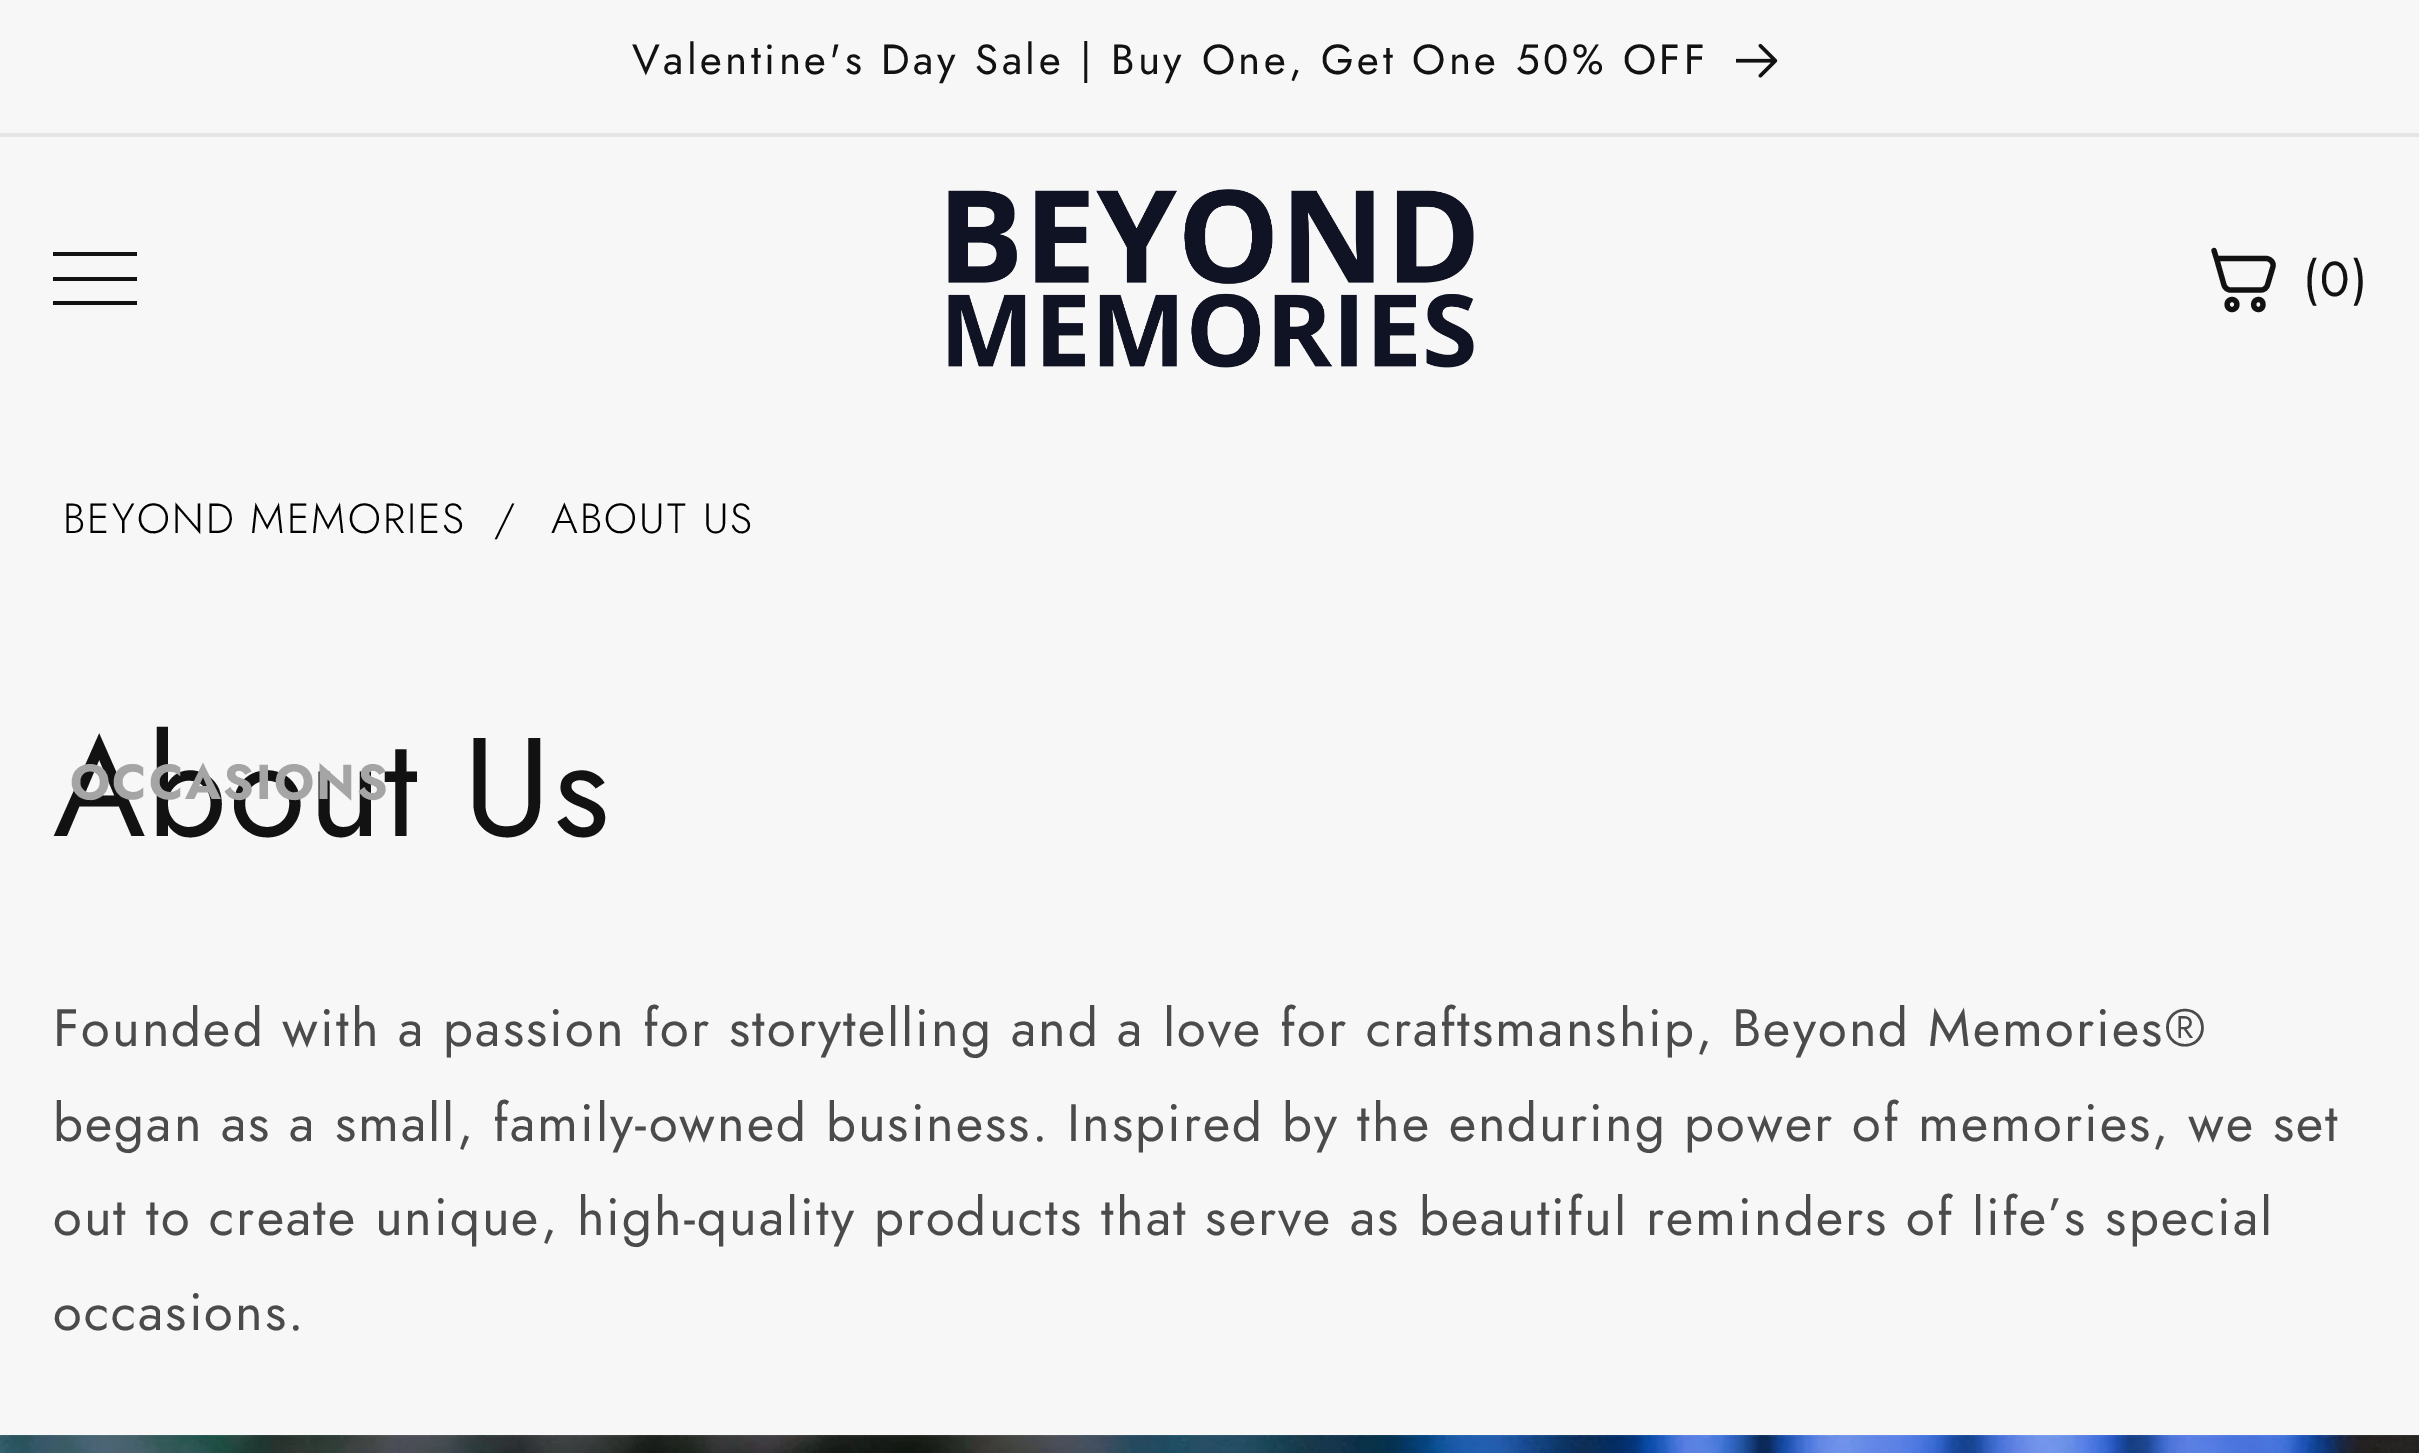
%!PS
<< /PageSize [2419 1453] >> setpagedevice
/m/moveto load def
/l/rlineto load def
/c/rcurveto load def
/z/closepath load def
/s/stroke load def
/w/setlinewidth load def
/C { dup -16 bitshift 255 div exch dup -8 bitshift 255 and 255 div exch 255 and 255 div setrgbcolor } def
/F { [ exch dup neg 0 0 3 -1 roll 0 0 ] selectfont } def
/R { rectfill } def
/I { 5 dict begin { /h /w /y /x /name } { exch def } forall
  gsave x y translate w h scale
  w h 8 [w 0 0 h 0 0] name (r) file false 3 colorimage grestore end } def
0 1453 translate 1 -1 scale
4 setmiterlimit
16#F7F7F7 C
0 0 2419 1453 R
16#E5E5E5 C
0 133 2419 4 R
/Jost-Regular 42 F
16#121212 C
632 74 m 3.5 0 (Valentine's Day Sale | Buy One, Get One 50% OFF) ashow
(1.rgb) 1736 43 42 35 I
(2.rgb) 948 189 526 179 I
5.2 w
1 setlinecap
1 setlinejoin
2258.5 309.5 m 6 0 6 -10 0 -10 c -6.5 0 -6.5 10 0 10 c 2232 309.5 m 6.5 0 6.5 -10 0 -10 c -6.5 0 -6.5 10 0 10 c 2216.5 258.5 m 49.5 0 l 4.5 0 8 4 7 8 c -5.5 18.5 l -1 3 -3.5 5 -6.5 5 c -30.5 0 l -3 0 -5.5 -2 -6.5 -5 c z 2216.5 258.5 m -2.5 -8 l s
/Jost-Regular 49 F
2303 296 m 2.1 0 (\(0\)) ashow
53 277 84 4 R
53 252 84 4 R
53 301 84 4 R
/Jost-Regular 140 F
53 836 m 2.1 0 (About Us) ashow
/Jost-Bold 49 F
16#A5A5A5 C
70 799 m 2.1 0 (OCCASIONS) ashow
/Jost-Light 42 F
16#000000 C
63 533 m 2.1 0 (BEYOND MEMORIES) ashow
494 533 m 2.1 0 (/) ashow
551 533 m 2.1 0 (ABOUT US) ashow
/Jost-Regular 52.5 F
16#4B4B4B C
53 1046 m 2.1 0 (Founded with a passion for storytelling and a love for craftsmanship, Beyond Memories®) ashow
53 1141 m 2.1 0 (began as a small, family-owned business. Inspired by the enduring power of memories, we set) ashow
53 1235 m 2.1 0 (out to create unique, high-quality products that serve as beautiful reminders of life’s special) ashow
53 1330 m 2.1 0 (occasions.) ashow
(3.rgb) 0 1435 2419 18 I
showpage
